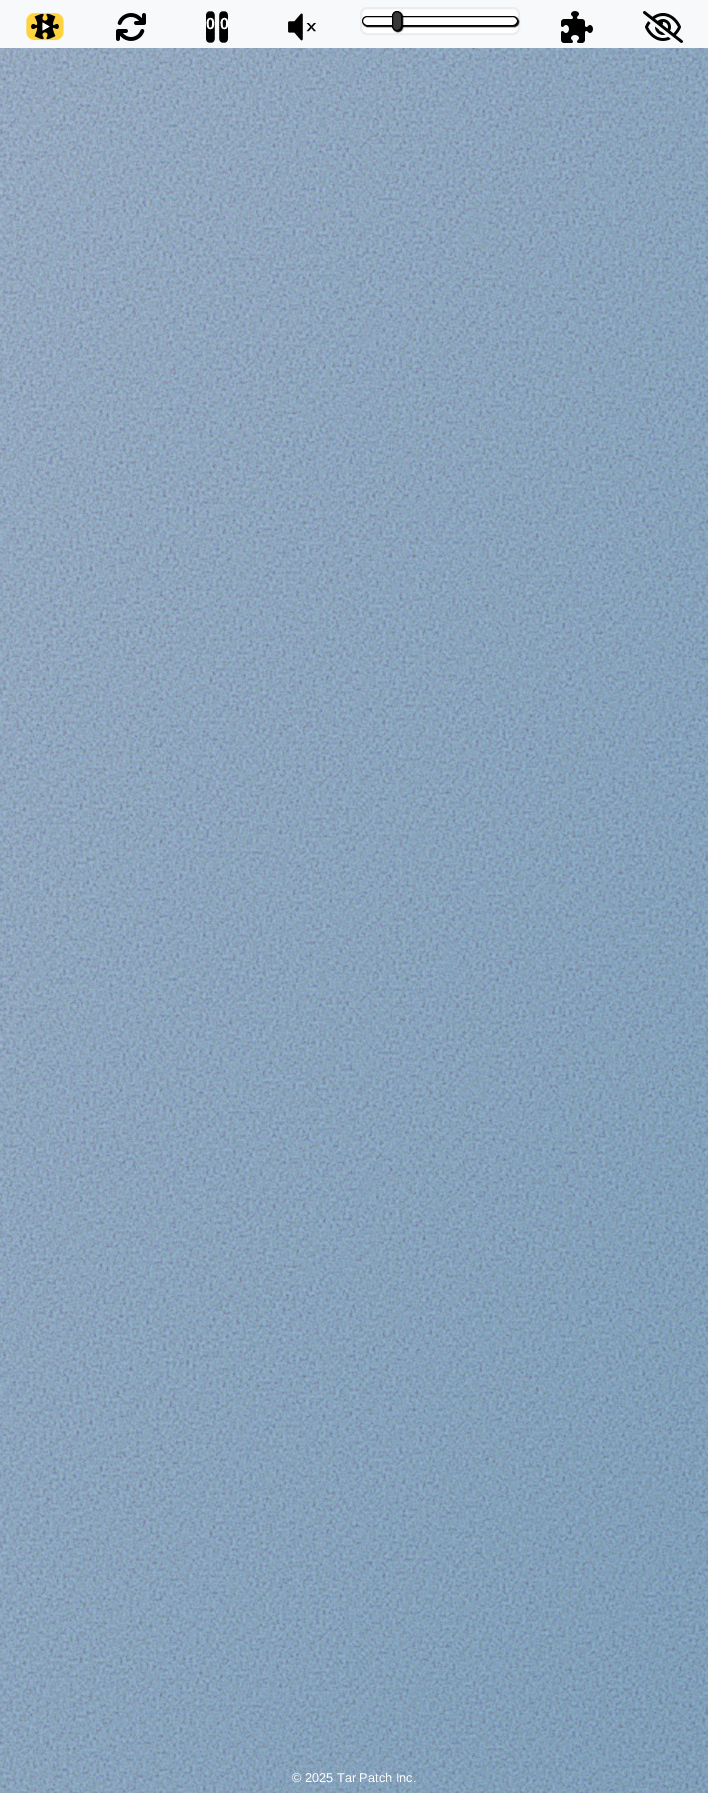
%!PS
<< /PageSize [708 1793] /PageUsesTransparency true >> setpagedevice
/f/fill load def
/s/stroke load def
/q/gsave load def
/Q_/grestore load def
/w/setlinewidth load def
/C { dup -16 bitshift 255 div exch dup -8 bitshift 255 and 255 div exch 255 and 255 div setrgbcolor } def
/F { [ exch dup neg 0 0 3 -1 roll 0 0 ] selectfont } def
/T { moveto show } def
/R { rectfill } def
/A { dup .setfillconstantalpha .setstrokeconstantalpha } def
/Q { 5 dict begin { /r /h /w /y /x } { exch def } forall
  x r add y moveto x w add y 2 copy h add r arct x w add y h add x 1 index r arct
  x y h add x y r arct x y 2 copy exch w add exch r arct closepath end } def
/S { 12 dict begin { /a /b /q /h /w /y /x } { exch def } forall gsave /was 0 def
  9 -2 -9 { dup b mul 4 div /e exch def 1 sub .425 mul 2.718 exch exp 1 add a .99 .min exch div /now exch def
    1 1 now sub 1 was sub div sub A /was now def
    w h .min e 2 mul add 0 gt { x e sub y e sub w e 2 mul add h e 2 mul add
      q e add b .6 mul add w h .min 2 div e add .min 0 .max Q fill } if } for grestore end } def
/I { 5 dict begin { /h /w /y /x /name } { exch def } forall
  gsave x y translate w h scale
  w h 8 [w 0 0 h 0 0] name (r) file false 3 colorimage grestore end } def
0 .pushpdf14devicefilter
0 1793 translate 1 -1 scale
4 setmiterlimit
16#FFFFFF C
0 0 708 1793 R
16#F8F9FA C
0 0 708 48 R
(1.rgb) 26 13 38 28 I
(2.rgb) 116 13 30 28 I
(3.rgb) 206 11 22 32 I
/LiberationSans-Bold 16 F
16#FFFFFF C
(0:0) 206 29 T
(4.rgb) 288 13 28 28 I
361 8 158 26 6 Q q f Q_
16#EEEDED C
2 w
s
16#000000 C
363 17 156 10 5 .5 1 S
16#FFFFFF C
362.5 16.5 155 9 4.5 Q q f Q_
16#000000 C
1 w
s
393 12 10 20 5 .5 1 S
16#383838 C
392.5 11.5 9 19 4.5 Q q f Q_
16#000000 C
s
(5.rgb) 561 11 32 32 I
(6.rgb) 643 11 40 32 I
(7.rgb) 0 48 708 1745 I
/LiberationSans-Regular 12.75 F
16#FFFFFF C
(© 2025 Tar Patch Inc.) 292 1782 T
.poppdf14devicefilter showpage
